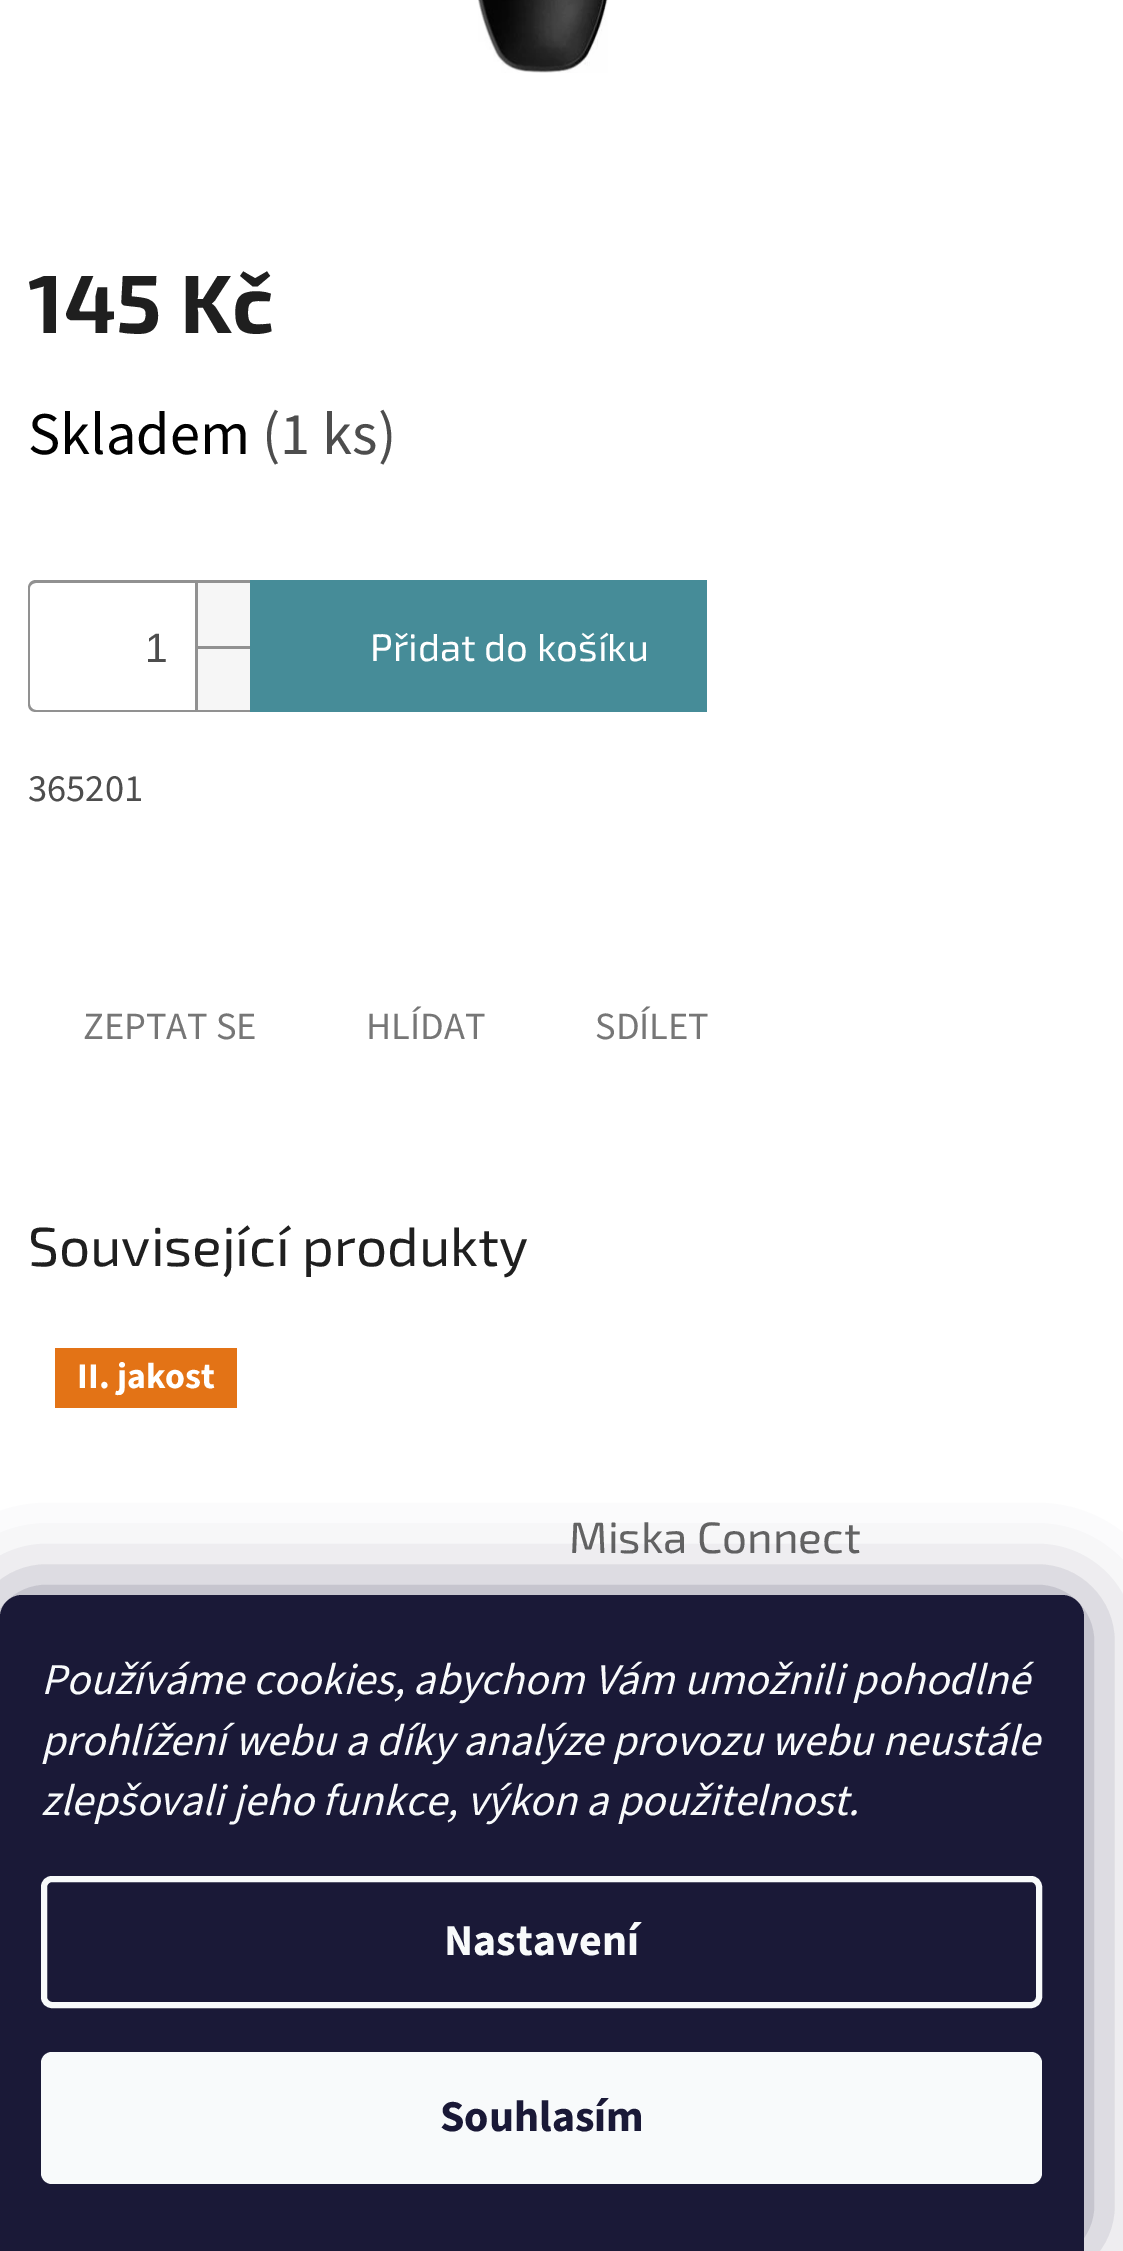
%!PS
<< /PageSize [1123 2251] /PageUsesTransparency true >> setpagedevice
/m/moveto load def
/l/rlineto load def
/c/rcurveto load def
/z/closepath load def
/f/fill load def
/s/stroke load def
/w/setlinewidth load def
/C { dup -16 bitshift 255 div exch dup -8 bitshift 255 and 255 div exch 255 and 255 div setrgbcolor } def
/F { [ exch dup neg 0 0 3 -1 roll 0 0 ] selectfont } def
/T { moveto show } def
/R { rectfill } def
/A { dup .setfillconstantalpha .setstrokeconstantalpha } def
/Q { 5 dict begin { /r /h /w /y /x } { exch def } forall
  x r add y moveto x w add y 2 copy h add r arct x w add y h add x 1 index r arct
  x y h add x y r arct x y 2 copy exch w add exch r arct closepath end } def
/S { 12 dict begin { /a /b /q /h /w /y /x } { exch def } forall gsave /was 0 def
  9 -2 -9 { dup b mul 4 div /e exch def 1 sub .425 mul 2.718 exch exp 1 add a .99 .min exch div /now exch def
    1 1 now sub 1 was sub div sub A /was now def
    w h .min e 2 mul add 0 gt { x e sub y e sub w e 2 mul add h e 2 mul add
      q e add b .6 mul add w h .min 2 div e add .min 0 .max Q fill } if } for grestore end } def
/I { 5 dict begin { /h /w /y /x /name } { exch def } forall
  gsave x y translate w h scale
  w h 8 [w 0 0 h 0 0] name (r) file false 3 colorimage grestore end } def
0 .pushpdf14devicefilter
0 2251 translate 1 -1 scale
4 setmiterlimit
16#FFFFFF C
0 0 1123 2251 R
(1.rgb) 478 0 130 73 I
/Exo2-Bold 82.5 F
16#1F1F1F C
(145 Kč) 28 333 T
/SourceSans3-Regular 60.5 F
16#000000 C
(Skladem) 28 454 T
16#4D4D4D C
(\(1 ks\)) 262 454 T
16#919191 C
36 580 m 214 0 l 0 132 l -214 0 l -5 0 -8 -3 -8 -8 c 0 -116 l 0 -4 3 -8 8 -8 c z 36 583 m 214 0 l 0 127 l -214 0 l -3 0 -6 -3 -6 -6 c 0 -116 l 0 -3 3 -5 6 -5 c z eofill
/LiberationSans-Regular 41 F
16#4D4D4D C
(1) 145 662 T
16#F6F6F6 C
198 583 52 63 R
16#919191 C
195 583 3 63 R
16#F6F6F6 C
198 649 52 61 R
16#919191 C
195 646 55 3 R
195 646 3 64 R
16#468C98 C
250 580 457 132 R
/Exo2-Regular 38.5 F
16#FFFFFF C
(Přidat do košíku) 370 661 T
/SourceSans3-Regular 38.5 F
16#4D4D4D C
(365201) 28 801 T
16#767676 C
(ZEPTAT SE) 83 1039 T
(HLÍDAT) 366 1039 T
(SDÍLET) 595 1039 T
/Exo2-Regular 55 F
16#1F1F1F C
(Související produkty) 28 1266 T
16#E37316 C
55 1348 182 60 R
/SourceSans3-Bold 36 F
16#FFFFFF C
(II. jakost) 77 1388 T
/Exo2-Regular 44 F
16#656565 C
(Miska Connect) 569 1553 T
16#1B1939 C
0 1595 1084 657 22 41 .5 S
16#1A1937 C
22 1595 m 1040 0 l 12 0 22 10 22 22 c 0 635 l -1084 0 l 0 -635 l 0 -12 10 -22 22 -22 c z f
/SourceSans3-Italic 44 F
16#F8FAFB C
(Používáme cookies, abychom Vám umožnili pohodlné) 41 1694 T
(prohlížení webu a díky analýze provozu webu neustále) 41 1755 T
(zlepšovali jeho funkce, výkon a použitelnost.) 41 1815 T
6 w
44 1879 995 126 8 Q s
/SourceSans3-Bold 44 F
(Nastavení) 444 1955 T
41 2052 1001 132 11 Q f
16#1A1937 C
(Souhlasím) 440 2131 T
.poppdf14devicefilter showpage
